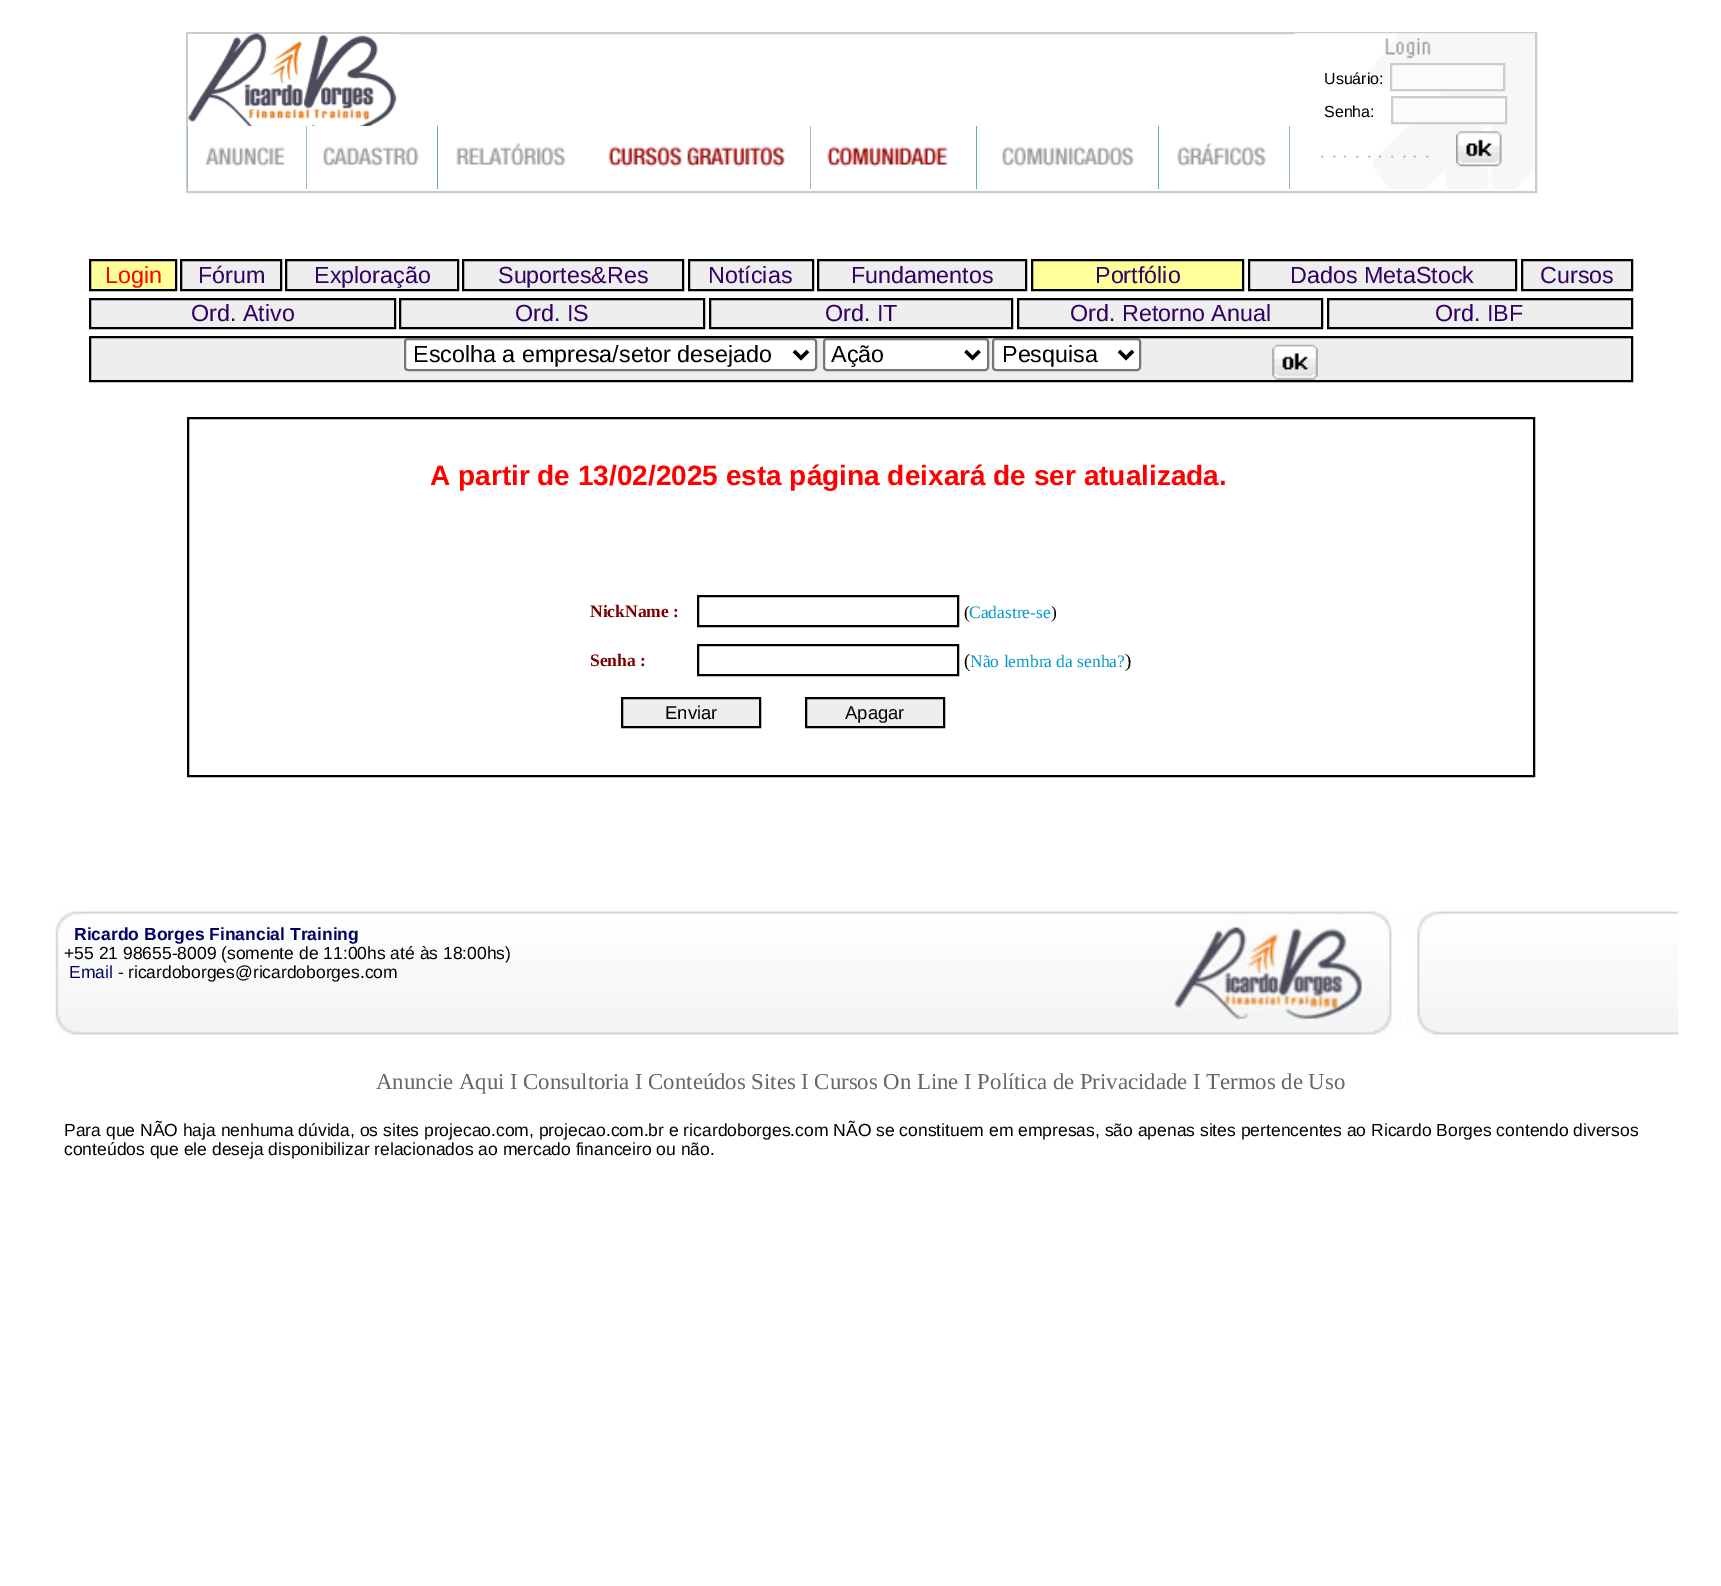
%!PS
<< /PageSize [1721 1586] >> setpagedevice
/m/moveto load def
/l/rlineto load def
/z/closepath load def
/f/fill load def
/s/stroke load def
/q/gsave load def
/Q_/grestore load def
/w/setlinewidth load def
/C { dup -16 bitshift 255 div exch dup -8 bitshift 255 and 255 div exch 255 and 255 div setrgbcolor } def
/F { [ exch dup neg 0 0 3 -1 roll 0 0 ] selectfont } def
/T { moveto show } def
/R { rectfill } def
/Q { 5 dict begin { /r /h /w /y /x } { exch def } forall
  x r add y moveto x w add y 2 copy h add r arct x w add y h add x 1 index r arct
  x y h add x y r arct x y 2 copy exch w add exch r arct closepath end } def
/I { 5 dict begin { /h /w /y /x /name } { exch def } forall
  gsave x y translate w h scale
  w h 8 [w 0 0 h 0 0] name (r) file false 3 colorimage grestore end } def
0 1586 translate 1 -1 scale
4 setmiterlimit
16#FFFFFF C
0 0 1721 1586 R
16#CCCCCC C
2 w
187 33 1349 159 rectstroke
(1.rgb) 188 33 209 93 I
16#006666 C
187 126 1103 63 R
(4.rgb) 437 126 151 63 I
(3.rgb) 306 126 132 63 I
(2.rgb) 187 126 120 63 I
(6.rgb) 810 126 167 63 I
(5.rgb) 588 126 223 63 I
(8.rgb) 1158 126 132 63 I
(7.rgb) 976 126 183 63 I
(9.rgb) 1295 33 240 156 I
/LiberationSans-Regular 16 F
16#000000 C
(Usuário:) 1324 84 T
16#FBFBFB C
1391 64 m 113 0 l 0 26 l -113 0 l z q f Q_
16#CCCCCC C
s
16#000000 C
(Senha:) 1324 117 T
16#FBFBFB C
1392 97 m 114 0 l 0 26 l -114 0 l z q f Q_
16#CCCCCC C
s
(10.rgb) 1456 131 46 36 I
16#FFFF99 C
90 260 m 86 0 l 0 30 l -86 0 l z q f Q_
16#000000 C
s
/LiberationSans-Regular 23.3 F
16#FF0000 C
(Login) 105 283 T
16#EEEEEE C
181 260 m 100 0 l 0 30 l -100 0 l z q f Q_
16#000000 C
s
16#330066 C
(Fórum) 198 283 T
16#EEEEEE C
286 260 m 172 0 l 0 30 l -172 0 l z q f Q_
16#000000 C
s
16#330066 C
(Exploração) 314 283 T
16#EEEEEE C
463 260 m 220 0 l 0 30 l -220 0 l z q f Q_
16#000000 C
s
16#330066 C
(Suportes&Res) 498 283 T
16#EEEEEE C
689 260 m 124 0 l 0 30 l -124 0 l z q f Q_
16#000000 C
s
16#330066 C
(Notícias) 708 283 T
16#EEEEEE C
818 260 m 208 0 l 0 30 l -208 0 l z q f Q_
16#000000 C
s
16#330066 C
(Fundamentos) 851 283 T
16#FFFF99 C
1032 260 m 211 0 l 0 30 l -211 0 l z q f Q_
16#000000 C
s
16#330066 C
(Portfólio) 1095 283 T
16#EEEEEE C
1249 260 m 267 0 l 0 30 l -267 0 l z q f Q_
16#000000 C
s
16#330066 C
(Dados MetaStock) 1290 283 T
16#EEEEEE C
1522 260 m 110 0 l 0 30 l -110 0 l z q f Q_
16#000000 C
s
16#330066 C
(Cursos) 1540 283 T
16#EEEEEE C
90 299 m 305 0 l 0 29 l -305 0 l z q f Q_
16#000000 C
s
16#330066 C
(Ord. Ativo) 191 321 T
16#EEEEEE C
400 299 m 304 0 l 0 29 l -304 0 l z q f Q_
16#000000 C
s
16#330066 C
(Ord. IS) 515 321 T
16#EEEEEE C
710 299 m 302 0 l 0 29 l -302 0 l z q f Q_
16#000000 C
s
16#330066 C
(Ord. IT) 825 321 T
16#EEEEEE C
1018 299 m 304 0 l 0 29 l -304 0 l z q f Q_
16#000000 C
s
16#330066 C
(Ord. Retorno Anual) 1070 321 T
16#EEEEEE C
1328 299 m 304 0 l 0 29 l -304 0 l z q f Q_
16#000000 C
s
16#330066 C
(Ord. IBF) 1435 321 T
16#EEEEEE C
90 337 m 1542 0 l 0 44 l -1542 0 l z q f Q_
16#000000 C
s
16#FFFFFF C
405 339 411 31 3 Q q f Q_
16#767676 C
s
16#000000 C
3.5 w
794 351 m 7 7 l 7 -7 l s
(Escolha a empresa/setor desejado) 413 362 T
16#FFFFFF C
824 339 164 31 3 Q q f Q_
16#767676 C
2 w
s
16#000000 C
3.5 w
965.5 351 m 7 7 l 7 -7 l s
(Ação) 831 362 T
16#FFFFFF C
993 339 147 31 3 Q q f Q_
16#767676 C
2 w
s
16#000000 C
3.5 w
1119 351 m 7 7 l 7 -7 l s
(Pesquisa) 1002 362 T
(11.rgb) 1272 344 46 36 I
2 w
188 418 1346 358 rectstroke
/LiberationSans-Bold 28 F
16#FF0000 C
(A partir de 13/02/2025 esta página deixará de ser atualizada.) 430 485 T
/LiberationSerif-Bold 17.5 F
16#800000 C
(NickName :) 590 617 T
16#000000 C
698 596 260 30 rectstroke
/LiberationSerif-Regular 17.5 F
(\() 964 618 T
16#0099CC C
(Cadastre-se) 969 618 T
16#000000 C
(\)) 1051 618 T
/LiberationSerif-Bold 17.5 F
16#800000 C
(Senha :) 590 666 T
16#000000 C
698 645 260 30 rectstroke
/LiberationSerif-Regular 19 F
(\() 964 667 T
/LiberationSerif-Regular 17.5 F
16#0099CC C
(Não lembra da senha?) 970 667 T
/LiberationSerif-Regular 19 F
16#000000 C
(\)) 1125 667 T
16#EEEEEE C
622 698 m 138 0 l 0 29 l -138 0 l z q f Q_
16#000000 C
s
/LiberationSans-Regular 18.5 F
(Enviar) 665 719 T
16#EEEEEE C
806 698 m 138 0 l 0 29 l -138 0 l z q f Q_
16#000000 C
s
(Apagar) 845 719 T
(12.rgb) 55 907 1624 132 I
/LiberationSans-Bold 17.5 F
16#000066 C
(Ricardo Borges Financial Training) 74 940 T
/LiberationSans-Regular 17.5 F
16#000000 C
(+55 21 98655-8009 \(somente de 11:00hs até às 18:00hs\)) 64 959 T
16#000066 C
(Email -) 69 978 T
16#000000 C
(ricardoborges@ricardoborges.com) 128 978 T
/LiberationSerif-Regular 22.75 F
16#666666 C
(Anuncie Aqui I Consultoria I Conteúdos Sites I Cursos On Line I Política de Privacidade I Termos de Uso) 376 1089 T
/LiberationSans-Regular 17.5 F
16#000000 C
(Para que NÃO haja nenhuma dúvida, os sites projecao.com, projecao.com.br e ricardoborges.com NÃO se constituem em empresas, são apenas sites pertencentes ao Ricardo Borges contendo diversos) 64 1136 T
(conteúdos que ele deseja disponibilizar relacionados ao mercado financeiro ou não.) 64 1155 T
showpage
